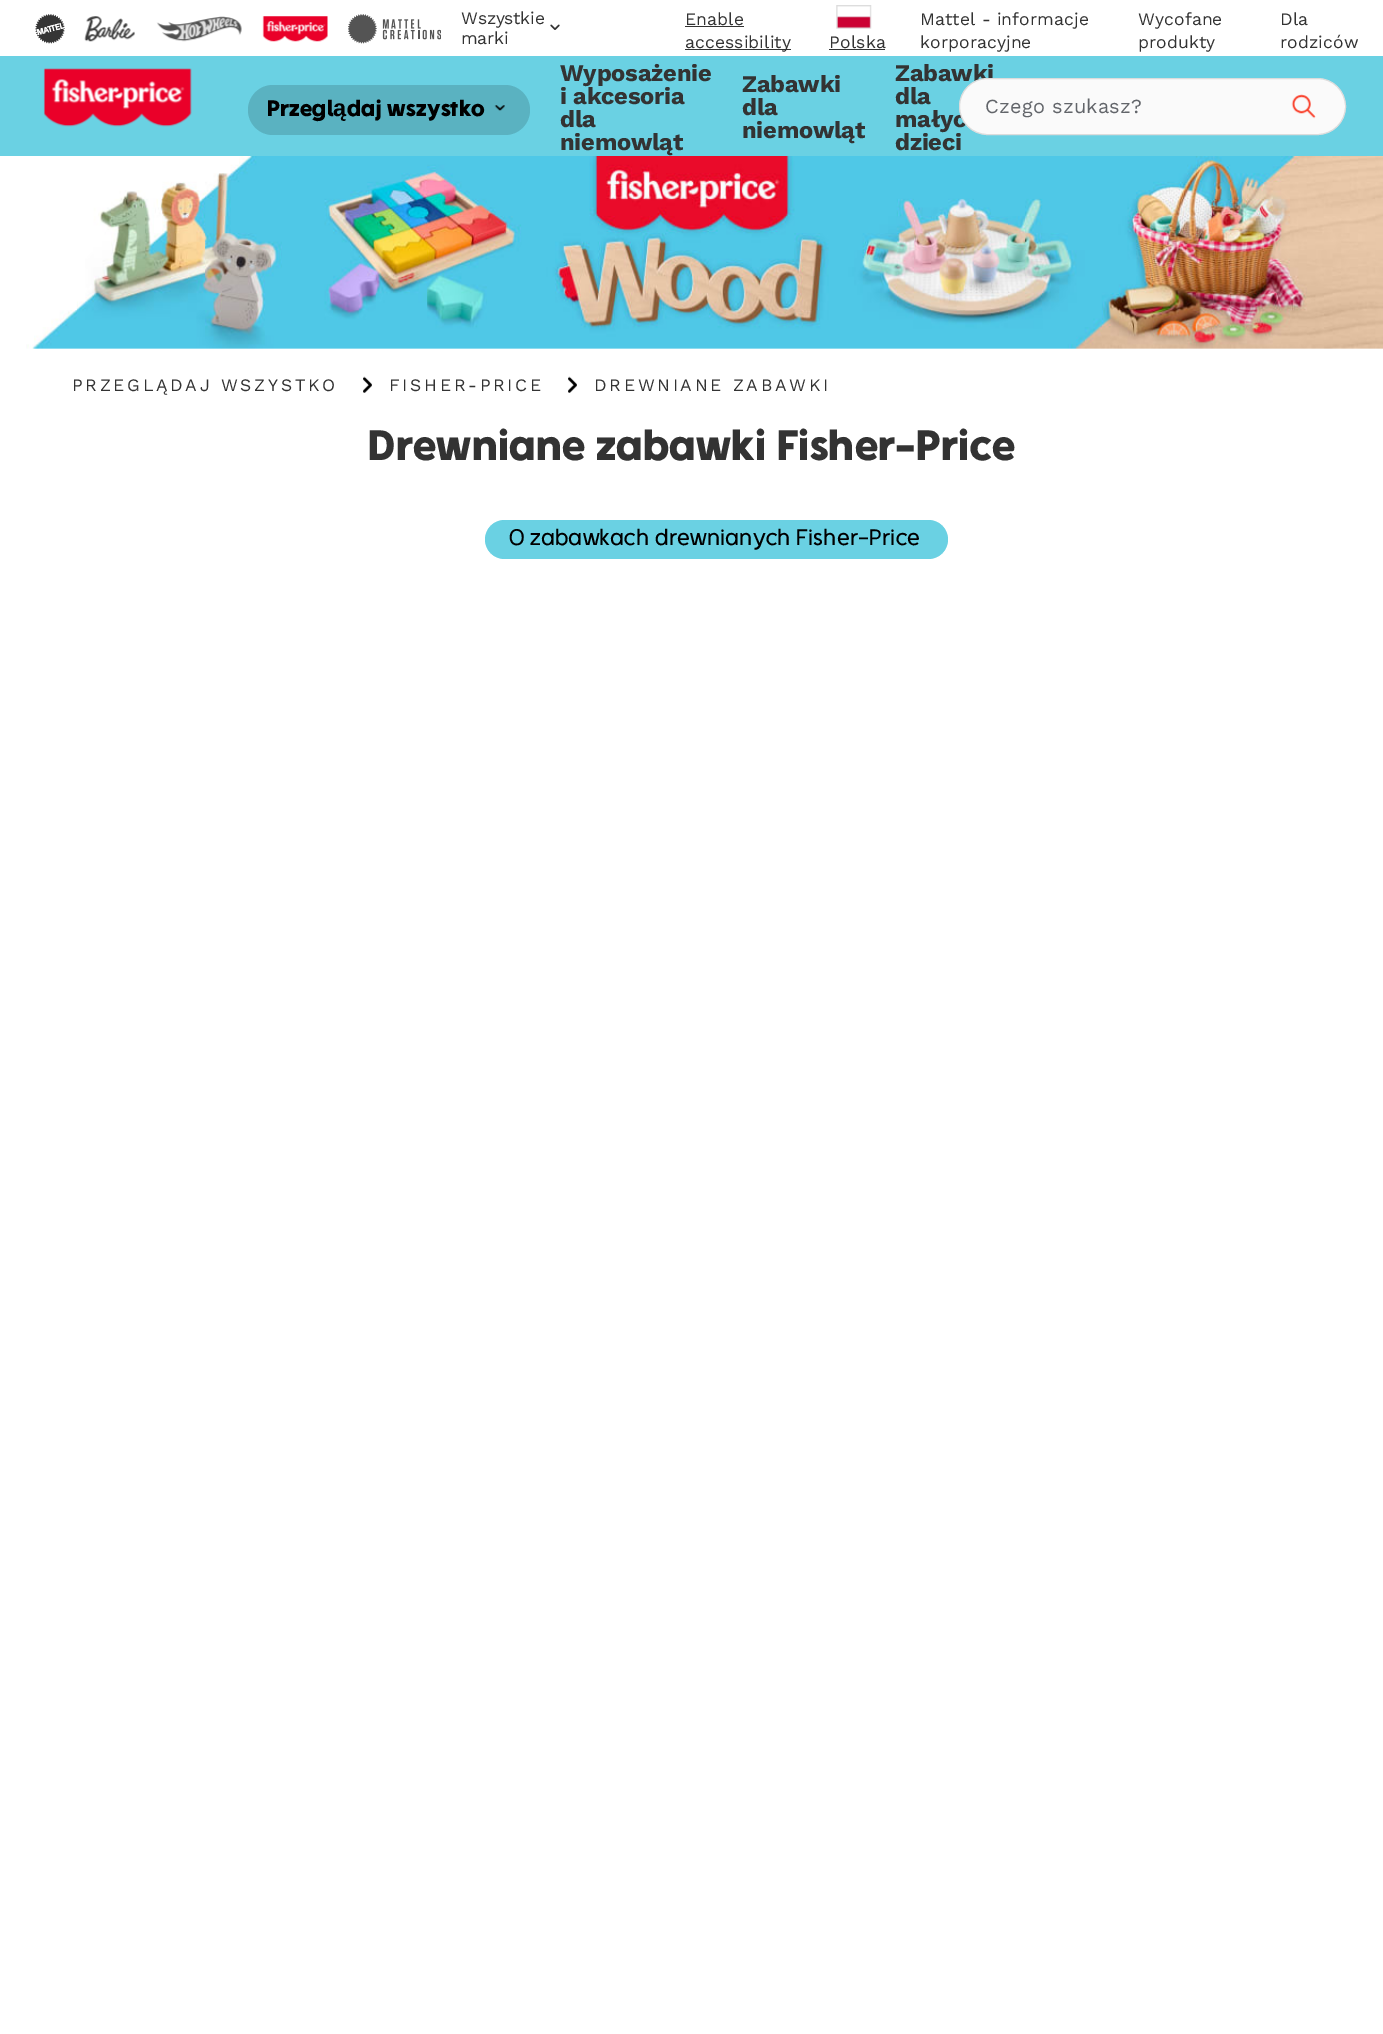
%!PS
<< /PageSize [1383 2034] >> setpagedevice
/m/moveto load def
/f/fill load def
/s/stroke load def
/q/gsave load def
/Q_/grestore load def
/C { dup -16 bitshift 255 div exch dup -8 bitshift 255 and 255 div exch 255 and 255 div setrgbcolor } def
/F { [ exch dup neg 0 0 3 -1 roll 0 0 ] selectfont } def
/R { rectfill } def
/Q { 5 dict begin { /r /h /w /y /x } { exch def } forall
  x r add y moveto x w add y 2 copy h add r arct x w add y h add x 1 index r arct
  x y h add x y r arct x y 2 copy exch w add exch r arct closepath end } def
/I { 5 dict begin { /h /w /y /x /name } { exch def } forall
  gsave x y translate w h scale
  w h 8 [w 0 0 h 0 0] name (r) file false 3 colorimage grestore end } def
0 2034 translate 1 -1 scale
4 setmiterlimit
16#FFFFFF C
0 0 1383 2034 R
(1.rgb) 35 14 30 30 I
(2.rgb) 84 16 51 26 I
(3.rgb) 156 16 86 26 I
(4.rgb) 262 16 66 26 I
(5.rgb) 348 14 93 30 I
/WorkSans-Regular 17.5 F
16#333333 C
461 24 m -.25 0 (Wszystkie) ashow
461 44 m -.25 0 (marki) ashow
(6.rgb) 550 24 10 6 I
685 25 m .1 0 (Enable) ashow
685 26 59 1 R
685 49 106 1 R
685 48 m .1 0 (accessibility) ashow
(7.rgb) 836 5 36 24 I
829 48 m .25 0 (Polska) ashow
829 49 56 1 R
920 25 m .1 0 (Mattel - informacje) ashow
920 48 m .1 0 (korporacyjne) ashow
1138 25 m .1 0 (Wycofane) ashow
1138 48 m .1 0 (produkty) ashow
1280 25 m .1 0 (Dla) ashow
1280 48 m .1 0 (rodziców) ashow
16#6AD1E3 C
0 56 1383 100 R
(8.rgb) 43 68 149 59 I
16#5AB2C1 C
248 85 282 50 25 Q f
/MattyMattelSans-Bold 23.75 F
16#000000 C
267 116 m .25 0 (Przegl) ashow
/LiberationSans-Bold 23.75 F
333 116 m .25 0 (ą) ashow
/MattyMattelSans-Bold 23.75 F
347 116 m .25 0 (daj wszystko) ashow
(9.rgb) 494 105 11 6 I
/WorkSans-Bold 23.75 F
16#333333 C
560 81 m -.25 0 (Wyposażenie) ashow
560 104 m -.25 0 (i akcesoria) ashow
560 127 m -.25 0 (dla) ashow
560 150 m -.25 0 (niemowląt) ashow
742 92 m -.25 0 (Zabawki) ashow
742 115 m -.25 0 (dla) ashow
742 138 m -.25 0 (niemowląt) ashow
895 81 m -.25 0 (Zabawki) ashow
895 104 m -.25 0 (dla) ashow
895 127 m -.25 0 (małyc) ashow
895 150 m -.25 0 (dzieci) ashow
16#FAFAFA C
959.5 78.5 386 56 28 Q q f Q_
16#DCDCDC C
s
/WorkSans-Regular 20 F
16#62656A C
985 113 m .25 0 (Czego szukasz?) ashow
(10.rgb) 1291 94 25 25 I
(11.rgb) 26 156 1357 193 I
/WorkSans-Regular 17.5 F
16#333333 C
72 391 m 2.7 0 (PRZEGLĄDAJ WSZYSTKO) ashow
(12.rgb) 363 376 9 17 I
389 391 m 2.7 0 (FISHER-PRICE) ashow
(12.rgb) 568 376 9 17 I
594 391 m 2.7 0 (DREWNIANE ZABAWKI) ashow
/MattyMattelSans-Bold 45 F
368 460 m .4 0 (Drewniane zabawki Fisher-Price) ashow
16#6AD1E3 C
485 520 463 39 19.5 Q f
/MattyMattelSans-Regular 23.75 F
16#000000 C
509 545 m .2 0 (O zabawkach drewnianych Fisher-Price) ashow
showpage
